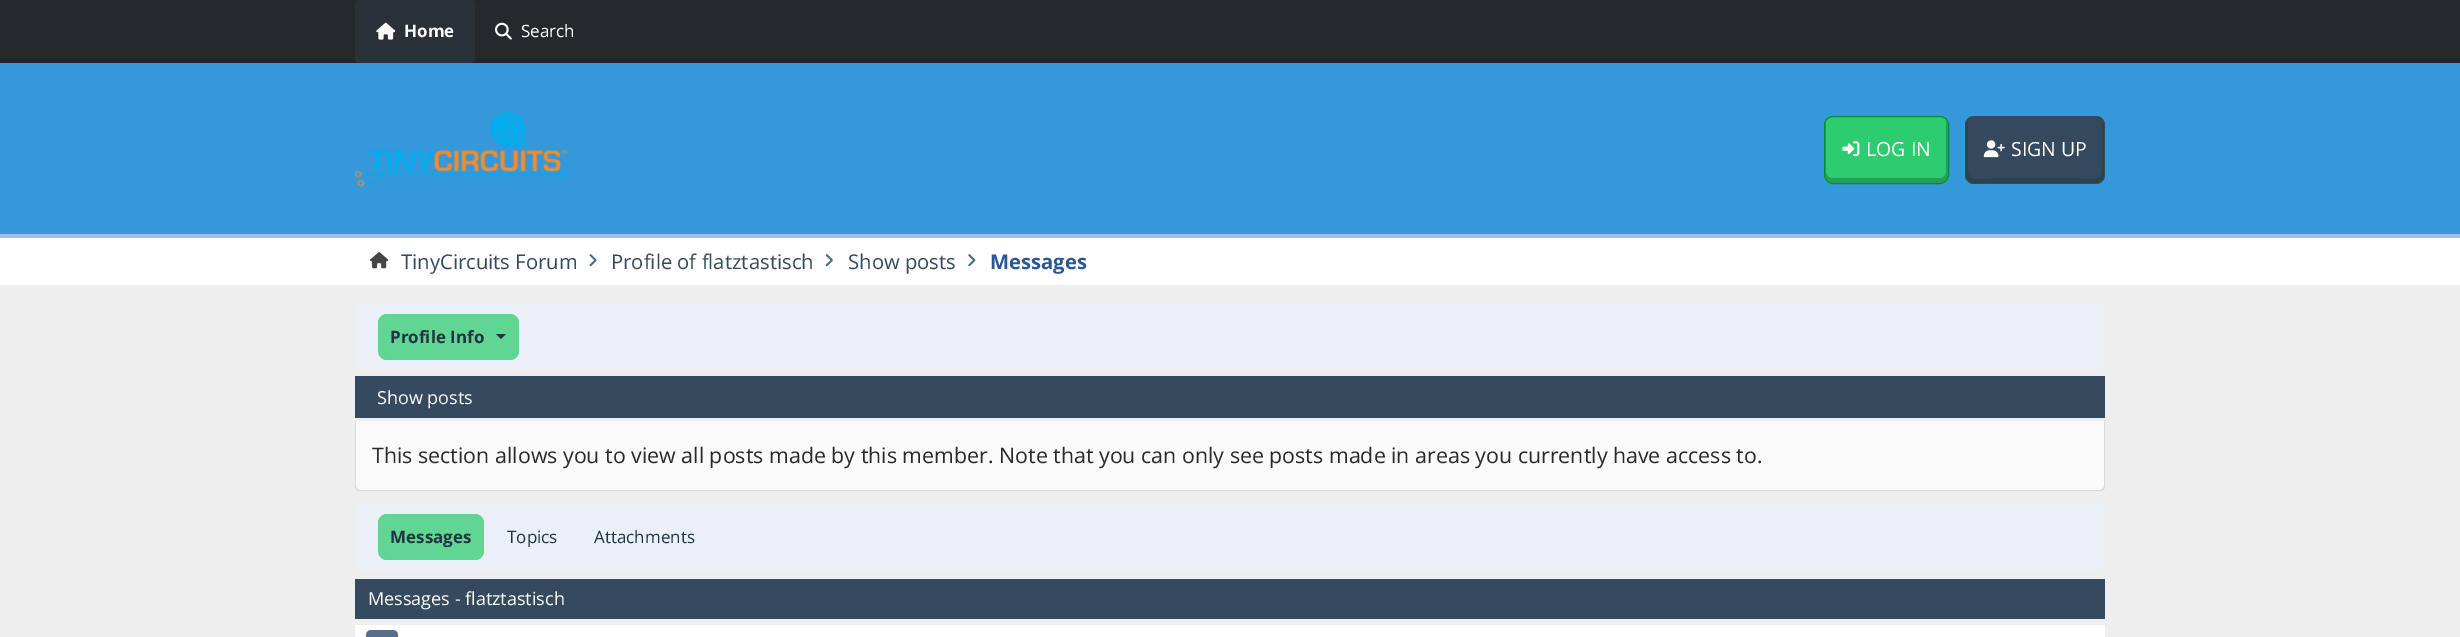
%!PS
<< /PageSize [2460 637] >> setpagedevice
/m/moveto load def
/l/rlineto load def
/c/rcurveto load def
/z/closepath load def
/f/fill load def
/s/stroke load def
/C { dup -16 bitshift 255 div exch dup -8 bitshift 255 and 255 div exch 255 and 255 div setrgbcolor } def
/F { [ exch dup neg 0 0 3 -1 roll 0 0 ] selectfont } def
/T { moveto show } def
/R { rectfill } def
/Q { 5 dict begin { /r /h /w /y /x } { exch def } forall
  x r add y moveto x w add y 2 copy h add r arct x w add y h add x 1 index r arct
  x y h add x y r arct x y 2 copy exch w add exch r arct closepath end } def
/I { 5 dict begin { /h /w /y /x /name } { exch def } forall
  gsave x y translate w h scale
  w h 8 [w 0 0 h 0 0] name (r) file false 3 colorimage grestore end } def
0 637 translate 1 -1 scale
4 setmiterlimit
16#EEEEEE C
0 0 2460 637 R
16#26292B C
0 0 2460 59 R
16#222427 C
0 59 2460 4 R
16#2A3037 C
355 0 120 63 4 Q f
(1.rgb) 376 22 20 18 I
/OpenSans-Bold 17 F
16#FFFFFF C
(Home) 404 37 T
(2.rgb) 495 22 17 18 I
/OpenSans-Regular 17 F
(Search) 521 37 T
16#3498DB C
0 63 2460 171 R
16#9FBFE0 C
0 234 2460 4 R
(3.rgb) 355 112 213 75 I
16#2ECC70 C
1824 116 125 68 9 Q f
16#289E59 C
1826 122 m -1 1 -1 3 -1 4 c 0 49 l 0 4 4 8 8 8 c 107 0 l 4 0 8 -4 8 -8 c 0 -49 l 0 -2 -1 -4 -2 -5 c 0 51 l 0 3 -2 6 -6 6 c -108 0 l -3 0 -6 -3 -6 -6 c z f
16#008F3C C
1824.5 116.5 124 67 8.5 Q s
(4.rgb) 1842 141 18 16 I
/OpenSans-Regular 19.5 F
16#FFFFFF C
(LOG IN) 1866 156 T
16#34495E C
1965 116 140 68 9 Q f
16#2C434D C
1968 121 m -1 1 -2 3 -2 5 c 0 49 l 0 4 4 8 8 8 c 122 0 l 4 0 8 -4 8 -8 c 0 -49 l 0 -2 -1 -4 -2 -5 c 0 52 l -2 10 -24 5 -26 5 c -82 0 l -2 0 -24 5 -26 -5 c z f
(5.rgb) 1983 140 22 18 I
16#FFFFFF C
(SIGN UP) 2011 156 T
0 238 2460 47 R
(6.rgb) 370 252 19 17 I
/OpenSans-Regular 20.25 F
16#34495E C
(TinyCircuits Forum) 401 269 T
(7.rgb) 589 254 8 13 I
(Profile of flatztastisch) 611 269 T
(8.rgb) 825 254 8 13 I
(Show posts) 848 269 T
(9.rgb) 968 254 8 13 I
/OpenSans-Bold 20.25 F
16#285995 C
(Messages) 990 269 T
16#EAF0F5 C
355 303 1750 68 6 Q f
16#61D692 C
378 314 141 46 9 Q f
/OpenSans-Bold 17 F
16#213345 C
(Profile Info) 390 343 T
496 334 m 10 0 l -5 5 l z f
16#354A5F C
355 376 1750 42 R
/OpenSans-Regular 18 F
16#FFFFFF C
(Show posts) 377 404 T
16#FAFAFA C
356 421 m 1748 0 l 0 65 l 0 2 -2 4 -4 4 c -1740 0 l -2 0 -4 -2 -4 -4 c z f
16#D9D9D9 C
355 421 m 1750 0 l 0 65 l 0 3 -2 5 -5 5 c -1740 0 l -3 0 -5 -2 -5 -5 c z 356 421 m 1748 0 l 0 65 l 0 2 -2 4 -4 4 c -1740 0 l -2 0 -4 -2 -4 -4 c z eofill
/OpenSans-Regular 21.38 F
16#292929 C
(This section allows you to view all posts made by this member. Note that you can only see posts made in areas you currently have access to.) 372 463 T
16#EAF0F5 C
355 503 1750 68 6 Q f
16#61D692 C
378 514 106 46 9 Q f
/OpenSans-Bold 17 F
16#213345 C
(Messages) 390 543 T
/OpenSans-Regular 17 F
(Topics) 507 543 T
(Attachments) 594 543 T
16#354A5F C
355 579 1750 40 R
/OpenSans-Regular 18 F
16#FFFFFF C
(Messages - flatztastisch) 368 605 T
355 625 1750 12 R
16#54708C C
366 630 32 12 5 Q f
showpage
